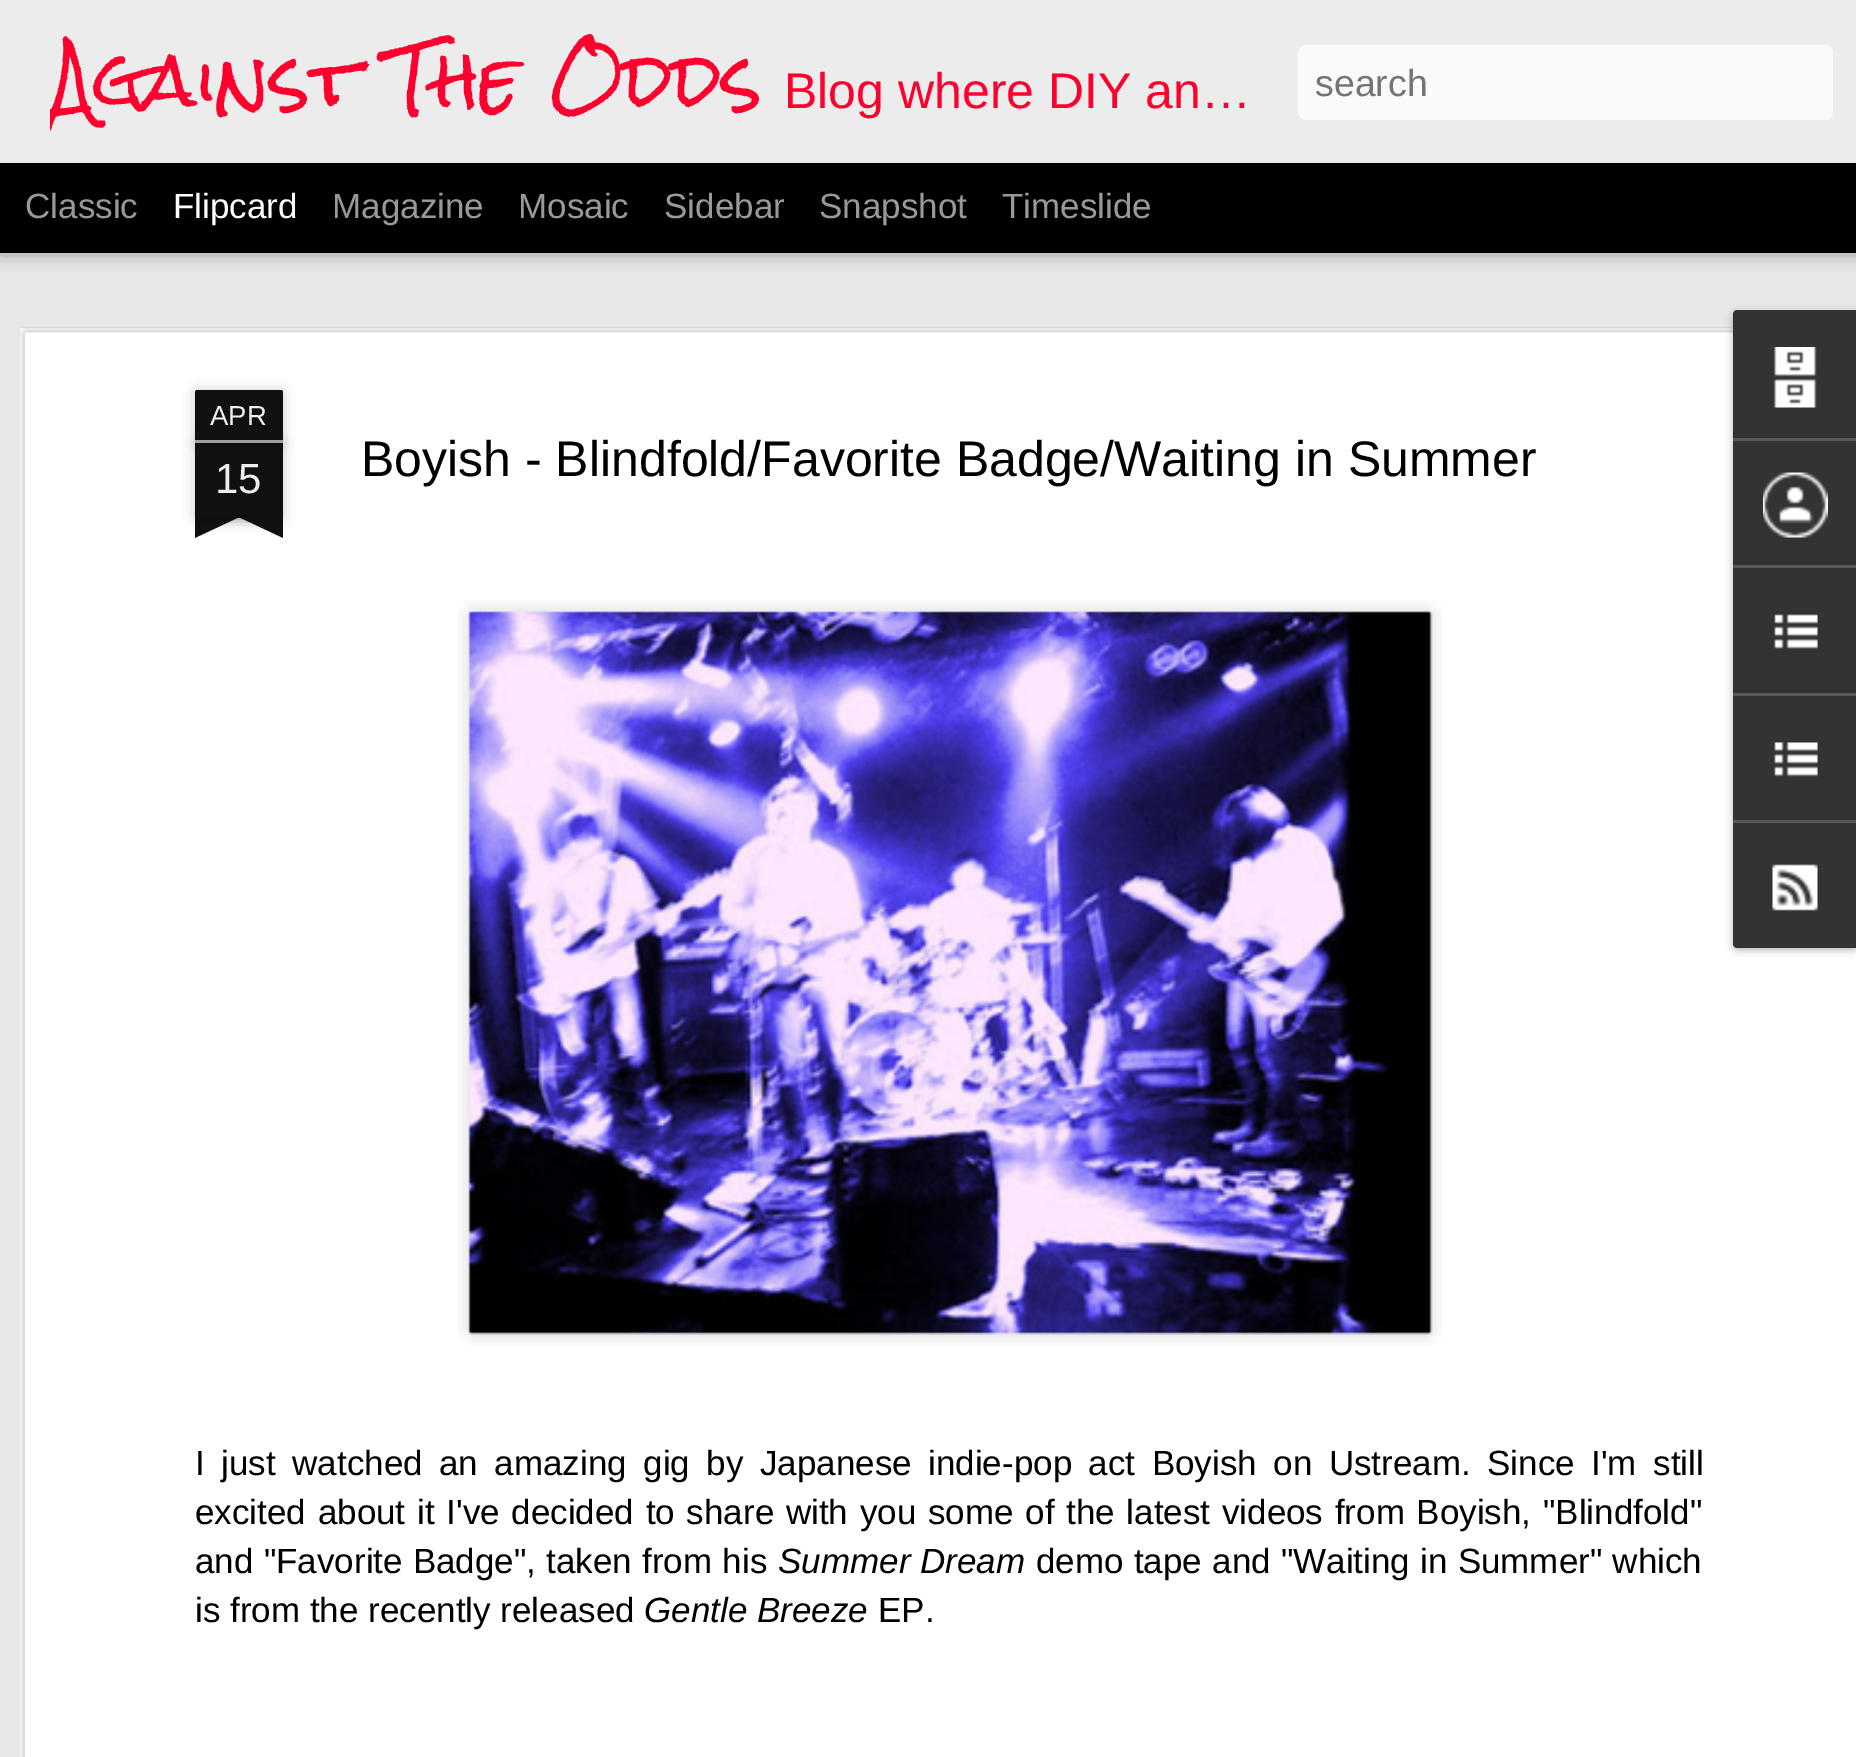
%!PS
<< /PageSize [1856 1757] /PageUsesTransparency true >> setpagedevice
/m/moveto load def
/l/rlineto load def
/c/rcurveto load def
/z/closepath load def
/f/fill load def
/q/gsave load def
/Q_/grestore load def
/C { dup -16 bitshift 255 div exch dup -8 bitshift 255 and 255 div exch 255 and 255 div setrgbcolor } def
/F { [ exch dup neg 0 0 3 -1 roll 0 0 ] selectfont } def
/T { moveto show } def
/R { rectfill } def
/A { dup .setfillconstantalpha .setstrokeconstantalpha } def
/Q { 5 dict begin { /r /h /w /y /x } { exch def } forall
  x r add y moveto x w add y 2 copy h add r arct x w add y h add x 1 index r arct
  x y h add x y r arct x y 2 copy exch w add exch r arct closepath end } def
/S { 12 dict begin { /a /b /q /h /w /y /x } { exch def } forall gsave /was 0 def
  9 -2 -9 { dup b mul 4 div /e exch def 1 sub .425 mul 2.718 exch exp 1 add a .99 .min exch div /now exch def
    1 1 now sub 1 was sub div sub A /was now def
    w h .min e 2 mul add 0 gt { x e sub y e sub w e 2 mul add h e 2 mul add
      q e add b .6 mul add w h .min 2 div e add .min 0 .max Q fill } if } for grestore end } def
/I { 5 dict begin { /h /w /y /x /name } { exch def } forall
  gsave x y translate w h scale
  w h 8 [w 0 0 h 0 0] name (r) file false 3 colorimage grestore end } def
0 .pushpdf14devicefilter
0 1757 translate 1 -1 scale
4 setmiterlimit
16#000000 C
0 0 1856 1757 R
16#E7E7E7 C
0 253 1856 1504 R
16#000000 C
0 163 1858 87 0 10 .5 S
16#ECECEC C
0 0 1856 163 R
q
50 0 1220 163 rectclip
/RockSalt-Regular 70 F
16#FD002D C
(Against The Odds) 50 108 T
Q_
/LiberationSans-Regular 50 F
16#FD002D C
(Blog where DIY an…) 784 108 T
16#FAFAFA C
1298 45 535 75 8 Q f
/LiberationSans-Regular 37.5 F
16#757575 C
(search) 1315 96 T
/LiberationSans-Regular 35 F
16#999999 C
(Classic) 25 218 T
16#FFFFFF C
(Flipcard) 173 218 T
16#999999 C
(Magazine) 332 218 T
(Mosaic) 518 218 T
(Sidebar) 664 218 T
(Snapshot) 819 218 T
(Timeslide) 1002 218 T
16#FFFFFF C
20 328 1836 1429 R
(1.rgb) 20 327 1713 1430 I
16#000000 C
195 443 88 75 0 6 .2 S
16#101010 C
195 443 88 75 R
16#000000 C
195 390 88 53 2.5 6 .2 S
16#101010 C
197.5 390 m 83 0 l 1.5 0 2.5 1 2.5 2.5 c 0 50.5 l -88 0 l 0 -50.5 l 0 -1.5 1 -2.5 2.5 -2.5 c z f
16#9F9F9F C
195 440 88 3 R
/LiberationSans-Regular 27.5 F
16#EEEEEE C
(APR) 210 425 T
/LiberationSans-Regular 42 F
(15) 215 493 T
q
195 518 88 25 rectclip
16#000000 C
173 493 125 25 0 6.5 .2 S
Q_
q
195 518 88 25 rectclip
16#101010 C
173 520 m 113 -53 l 11 23 l -113 53 l z f
Q_
q
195 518 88 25 rectclip
16#000000 C
180 493 125 25 0 6.5 .2 S
Q_
q
195 518 88 25 rectclip
16#101010 C
191 467 m 113 53 l -10 23 l -113 -53 l z f
Q_
/LiberationSans-Regular 50 F
16#000000 C
(Boyish - Blindfold/Favorite Badge/Waiting in Summer) 361 476 T
(2.rgb) 458 600 984 745 I
(3.rgb) 468 611 965 724 I
/LiberationSans-Regular 35 F
195 1475 m 6.75 0 32 (I just watched an amazing gig by Japanese indie-pop act Boyish on Ustream. Since I'm still) widthshow
195 1524 m 2 0 32 (excited about it I've decided to share with you some of the latest videos from Boyish, "Blindfold") widthshow
195 1573 m .5 0 32 (and "Favorite Badge", taken from his) widthshow
/LiberationSans-Italic 35 F
(Summer Dream) 778 1573 T
/LiberationSans-Regular 35 F
1036 1573 m .5 0 32 (demo tape and "Waiting in Summer" which) widthshow
(is from the recently released) 195 1622 T
/LiberationSans-Italic 35 F
(Gentle Breeze) 644 1622 T
/LiberationSans-Regular 35 F
(EP.) 878 1622 T
1733 313 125 637 5 4 .3 S
16#333333 C
1738 310 m 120 0 l 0 638 l -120 0 l -3 0 -5 -2 -5 -5 c 0 -628 l 0 -3 2 -5 5 -5 c z f
1738 310 m 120 0 l 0 128 l -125 0 l 0 -123 l 0 -3 2 -5 5 -5 c z f
(4.rgb) 1773 347 44 61 I
16#585858 C
1733 438 123 3 R
(5.rgb) 1763 472 65 66 I
1733 565 123 3 R
(6.rgb) 1774 614 44 35 I
1733 693 123 3 R
(7.rgb) 1774 742 44 35 I
16#333333 C
1733 820 m 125 0 l 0 128 l -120 0 l -3 0 -5 -2 -5 -5 c z f
16#585858 C
1733 820 123 3 R
(8.rgb) 1772 864 46 47 I
.poppdf14devicefilter showpage
